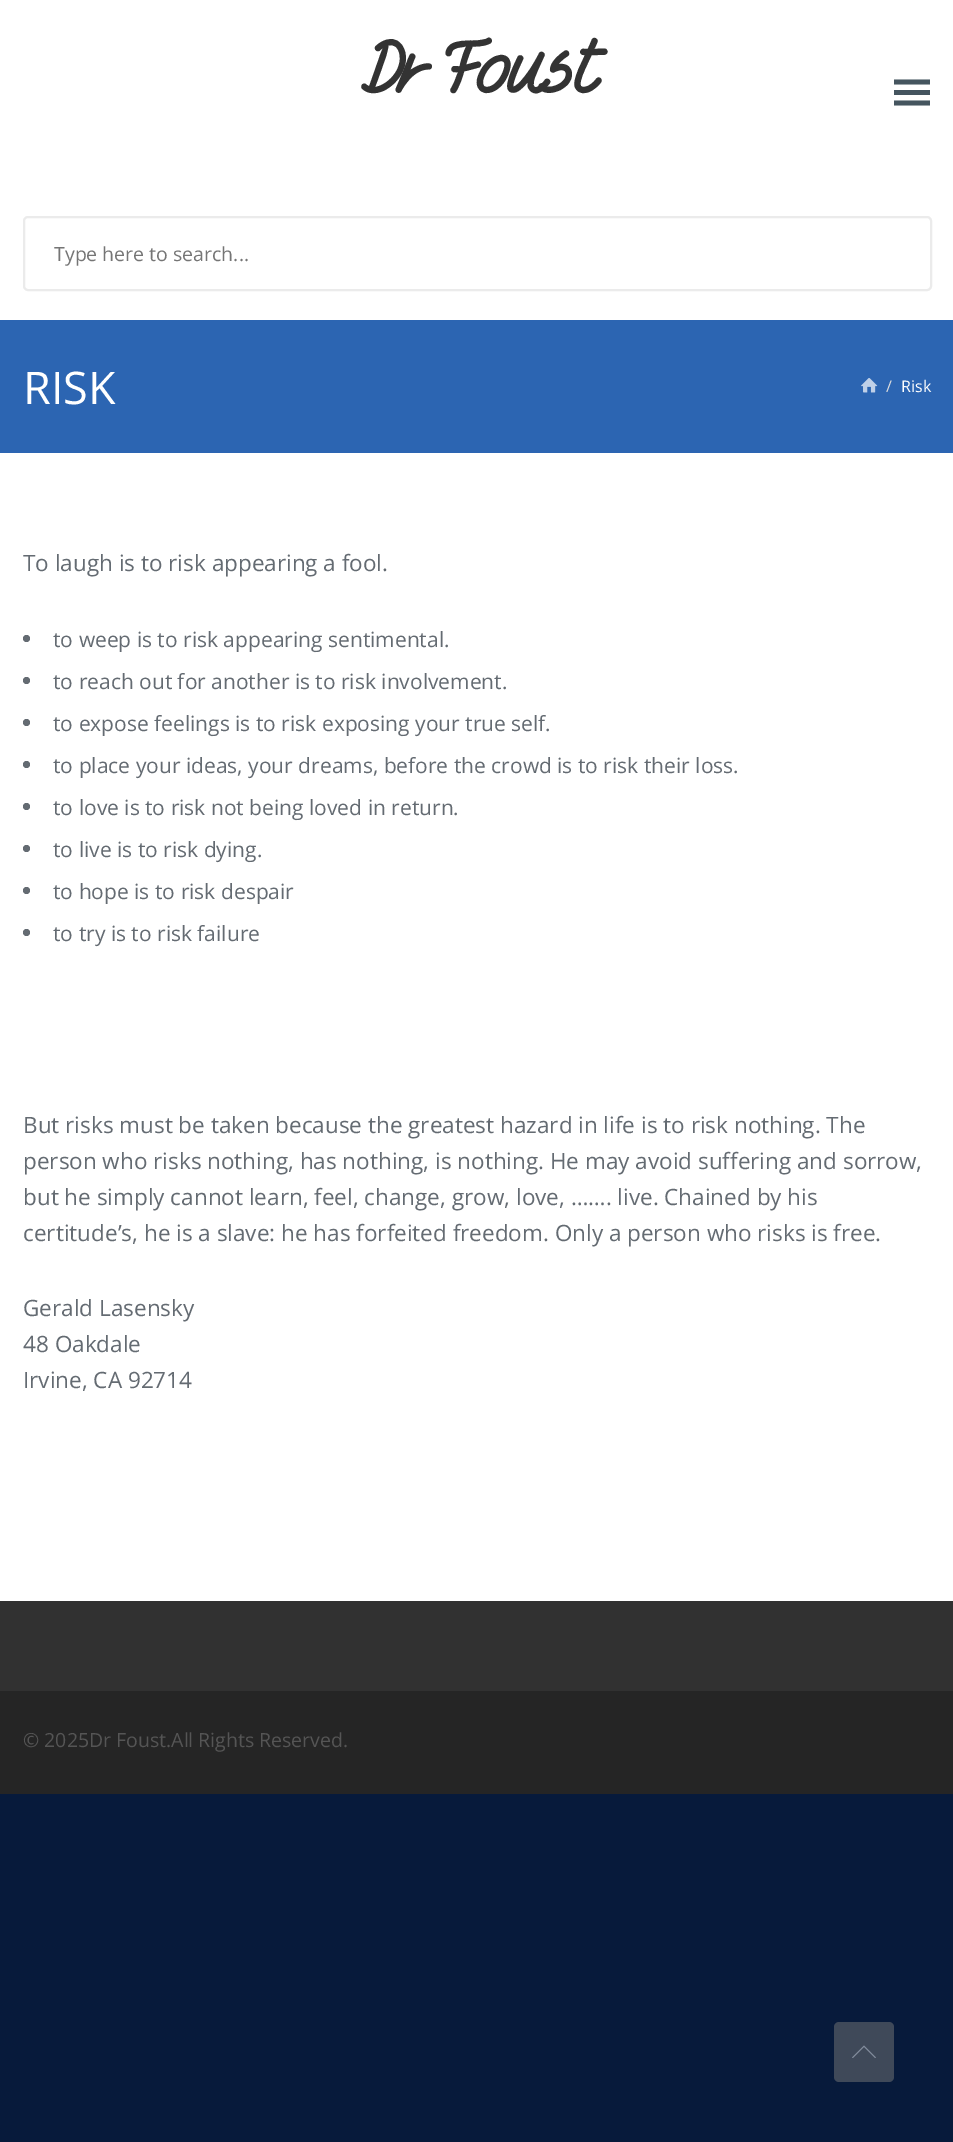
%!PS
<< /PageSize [953 2142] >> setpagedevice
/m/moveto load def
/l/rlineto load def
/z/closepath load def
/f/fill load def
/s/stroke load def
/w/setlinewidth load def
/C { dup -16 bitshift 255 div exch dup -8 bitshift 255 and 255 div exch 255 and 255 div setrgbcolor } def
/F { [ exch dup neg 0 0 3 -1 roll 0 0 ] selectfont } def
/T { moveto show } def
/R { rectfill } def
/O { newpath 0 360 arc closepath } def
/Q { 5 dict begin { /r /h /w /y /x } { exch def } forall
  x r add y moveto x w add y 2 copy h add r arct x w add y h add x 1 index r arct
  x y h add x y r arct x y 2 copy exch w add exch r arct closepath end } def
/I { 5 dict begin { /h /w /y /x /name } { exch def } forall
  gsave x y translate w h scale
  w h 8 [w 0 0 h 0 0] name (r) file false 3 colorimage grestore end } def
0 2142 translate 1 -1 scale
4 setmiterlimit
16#071A3B C
0 0 953 2142 R
16#FFFFFF C
0 0 953 1601 R
/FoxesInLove-Bold 72 F
16#333333 C
(Dr Foust) 360 93 T
16#45555F C
894 79.5 m 0 5 l 36 0 l 0 -5 l z 894 95 m 36 0 l 0 -5 l -36 0 l z 894 105.5 m 36 0 l 0 -5 l -36 0 l z f
16#EBEBEB C
2 w
24 217 907 73 4 Q s
/OpenSans-Regular 19.5 F
16#757575 C
(Type here to search...) 54 261 T
16#2C65B2 C
0 320 953 133 R
/OpenSans-Regular 45 F
16#FFFFFF C
(RISK) 23 404 T
(1.rgb) 861 378 17 15 I
/OpenSans-Regular 16 F
16#DDDDDD C
(/) 886 392 T
16#FFFFFF C
(Risk) 901 392 T
/OpenSans-Regular 22.5 F
16#646B72 C
(To laugh is to risk appearing a fool.) 23 571 T
26.5 638.5 3.5 O f
/OpenSans-Regular 21 F
(to weep is to risk appearing sentimental.) 53 647 T
26.5 680.5 3.5 O f
(to reach out for another is to risk involvement.) 53 689 T
26.5 722.5 3.5 O f
(to expose feelings is to risk exposing your true self.) 53 731 T
26.5 764.5 3.5 O f
(to place your ideas, your dreams, before the crowd is to risk their loss.) 53 773 T
26.5 806.5 3.5 O f
(to love is to risk not being loved in return.) 53 815 T
26.5 848.5 3.5 O f
(to live is to risk dying.) 53 857 T
26.5 890.5 3.5 O f
(to hope is to risk despair) 53 899 T
26.5 932.5 3.5 O f
(to try is to risk failure) 53 941 T
/OpenSans-Regular 22.5 F
(But risks must be taken because the greatest hazard in life is to risk nothing. The) 23 1133 T
(person who risks nothing, has nothing, is nothing. He may avoid suffering and sorrow,) 23 1169 T
(but he simply cannot learn, feel, change, grow, love, ……. live. Chained by his) 23 1205 T
(certitude’s, he is a slave: he has forfeited freedom. Only a person who risks is free.) 23 1241 T
(Gerald Lasensky) 23 1316 T
(48 Oakdale) 23 1352 T
(Irvine, CA 92714) 23 1388 T
16#313131 C
0 1601 953 90 R
16#252525 C
0 1691 953 103 R
/OpenSans-Regular 19.5 F
16#555555 C
(© 2025Dr Foust.All Rights Reserved.) 23 1747 T
16#3F4959 C
834 2022 60 60 5 Q f
16#838D9D C
864 2045.5 m -12 12 l 1 .5 l 11 -11 l 11 11 l 1 -.5 l z f
showpage
